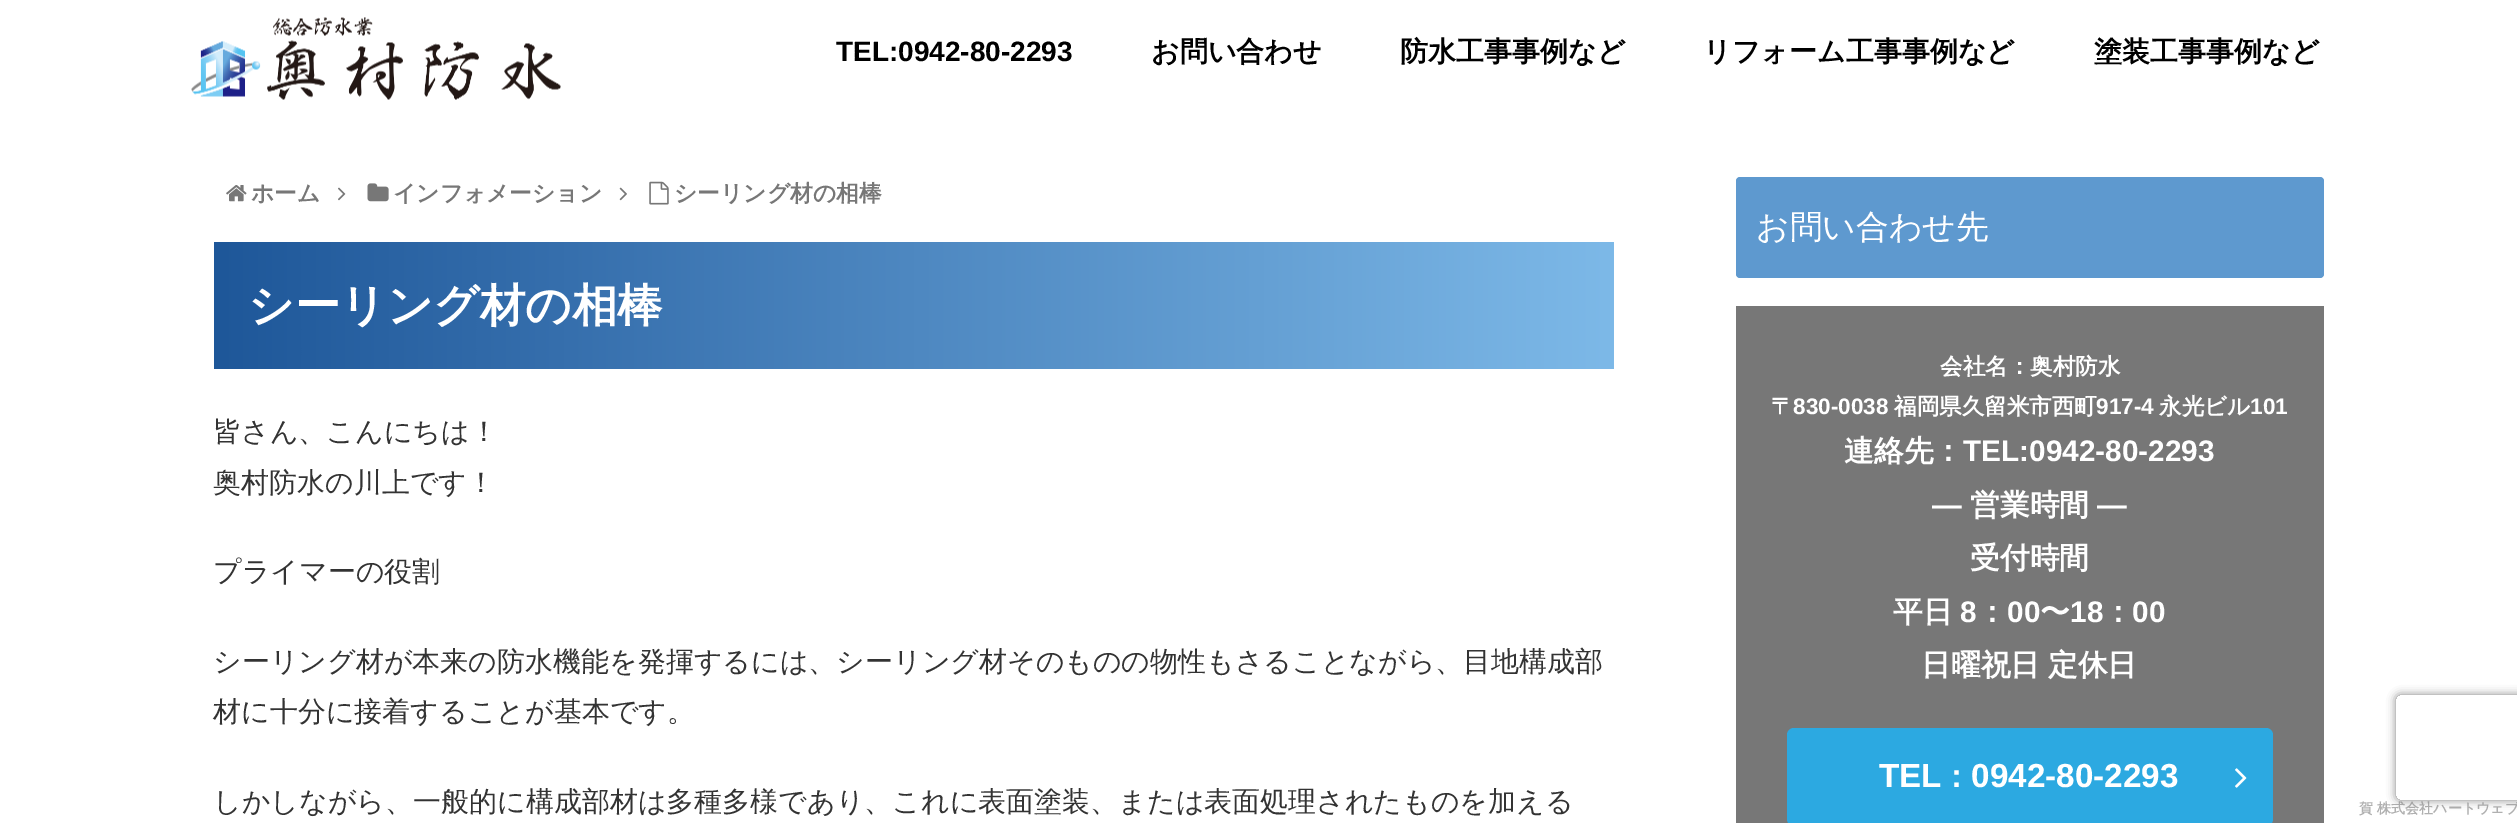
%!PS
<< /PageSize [2517 823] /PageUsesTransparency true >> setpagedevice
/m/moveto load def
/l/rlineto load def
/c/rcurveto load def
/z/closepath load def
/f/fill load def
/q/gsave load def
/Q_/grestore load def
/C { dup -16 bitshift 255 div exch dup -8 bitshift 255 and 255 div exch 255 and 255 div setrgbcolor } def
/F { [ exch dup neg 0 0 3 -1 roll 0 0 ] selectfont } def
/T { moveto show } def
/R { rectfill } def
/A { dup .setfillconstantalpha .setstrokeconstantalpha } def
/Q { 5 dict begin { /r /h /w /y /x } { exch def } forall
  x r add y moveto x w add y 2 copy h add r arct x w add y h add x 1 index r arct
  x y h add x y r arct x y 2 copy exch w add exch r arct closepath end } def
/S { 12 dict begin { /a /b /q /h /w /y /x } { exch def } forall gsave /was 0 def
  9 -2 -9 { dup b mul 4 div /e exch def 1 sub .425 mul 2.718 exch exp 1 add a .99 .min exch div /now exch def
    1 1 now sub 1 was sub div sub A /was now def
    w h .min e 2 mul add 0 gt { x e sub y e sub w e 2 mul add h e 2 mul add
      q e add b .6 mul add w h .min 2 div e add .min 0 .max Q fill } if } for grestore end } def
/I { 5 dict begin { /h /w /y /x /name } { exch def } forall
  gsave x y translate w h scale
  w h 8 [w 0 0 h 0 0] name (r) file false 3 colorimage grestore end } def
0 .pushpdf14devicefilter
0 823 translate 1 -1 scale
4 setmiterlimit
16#FFFFFF C
0 0 2517 823 R
(1.rgb) 191 17 370 83 I
/LiberationSans-Bold 28 F
16#000000 C
(TEL:0942-80-2293) 836 61 T
/WenQuanYiZenHei-Bold 28 F
(お問い合わせ) 1151 61 T
(防水工事事例など) 1400 61 T
(リフォーム工事事例など) 1703 61 T
(塗装工事事例など) 2094 61 T
(2.rgb) 226 185 21 17 I
/WenQuanYiZenHei-Bold 22.75 F
16#777777 C
(ホーム) 251 201 T
(3.rgb) 338 187 8 14 I
(4.rgb) 367 183 22 19 I
(インフォメーション) 393 201 T
(5.rgb) 619 187 8 14 I
(6.rgb) 649 181 20 24 I
(シーリング材の相棒) 674 201 T
q 214 242 m 1400 0 l 0 127 l -1400 0 l z clip newpath
<< /ShadingType 2 /ColorSpace /DeviceRGB /Coords [214 305 1614 305] /Extend [true true] /Function << /FunctionType 2 /Domain [0 1] /C0 [.118 .341 .6] /C1 [.49 .725 .91] /N 1 >> >> shfill Q_
/WenQuanYiZenHei-Bold 45.5 F
16#FFFFFF C
(シーリング材の相棒) 248 321 T
/WenQuanYiZenHei-Medium 28 F
16#333333 C
(皆さん、こんにちは！) 213 441 T
(奥村防水の川上です！) 213 492 T
(プライマーの役割) 213 581 T
(シーリング材が本来の防水機能を発揮するには、シーリング材そのものの物性もさることながら、目地構成部) 213 671 T
(材に十分に接着することが基本です。) 213 721 T
(しかしながら、一般的に構成部材は多種多様であり、これに表面塗装、または表面処理されたものを加える) 213 811 T
16#5E99CF C
1736 177 588 101 4 Q f
/WenQuanYiZenHei-Medium 32.75 F
16#FFFFFF C
(お問い合わせ先) 1756 238 T
16#777777 C
1736 306 588 517 R
/WenQuanYiZenHei-Bold 22.5 F
16#FFFFFF C
(会社名：奥村防水) 1940 374 T
(〒) 1771 414 T
/LiberationSans-Bold 22.5 F
(830-0038) 1793 414 T
/WenQuanYiZenHei-Bold 22.5 F
(福岡県久留米市西町) 1894 414 T
/LiberationSans-Bold 22.5 F
(917-4) 2096 414 T
/WenQuanYiZenHei-Bold 22.5 F
(永光ビル) 2159 414 T
/LiberationSans-Bold 22.5 F
(101) 2250 414 T
/WenQuanYiZenHei-Bold 29.75 F
(連絡先：) 1844 461 T
/LiberationSans-Bold 29.75 F
(TEL:0942-80-2293) 1963 461 T
(―) 1932 515 T
/WenQuanYiZenHei-Bold 29.75 F
(営業時間) 1970 515 T
/LiberationSans-Bold 29.75 F
(―) 2097 515 T
/WenQuanYiZenHei-Bold 29.75 F
(受付時間) 1970 568 T
(平日) 1893 622 T
/LiberationSans-Bold 29.75 F
(8) 1960 622 T
/WenQuanYiZenHei-Bold 29.75 F
(：) 1977 622 T
/LiberationSans-Bold 29.75 F
(00) 2007 622 T
/WenQuanYiZenHei-Bold 29.75 F
(〜) 2040 622 T
/LiberationSans-Bold 29.75 F
(18) 2070 622 T
/WenQuanYiZenHei-Bold 29.75 F
(：) 2103 622 T
/LiberationSans-Bold 29.75 F
(00) 2132 622 T
/WenQuanYiZenHei-Bold 29.75 F
1921 675 m -1 0 32 (日曜祝日 定休日) widthshow
16#2CA9E1 C
1787 728 486 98 7 Q f
/LiberationSans-Bold 33.25 F
16#FFFFFF C
(TEL : 0942-80-2293) 1879 787 T
(7.rgb) 2235 768 12 20 I
/WenQuanYiZenHei-Bold 14 F
16#B0B0B0 C
(賀 株式会社ハートウェブ) 2359 813 T
q
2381 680 m 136 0 l 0 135 l -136 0 l z 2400 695 m 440 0 l 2 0 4 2 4 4 c 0 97 l 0 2 -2 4 -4 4 c -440 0 l -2 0 -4 -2 -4 -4 c 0 -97 l 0 -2 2 -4 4 -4 c z eoclip newpath
16#808080 C
2396 695 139 105 4 4.5 1 S
Q_
.poppdf14devicefilter showpage
